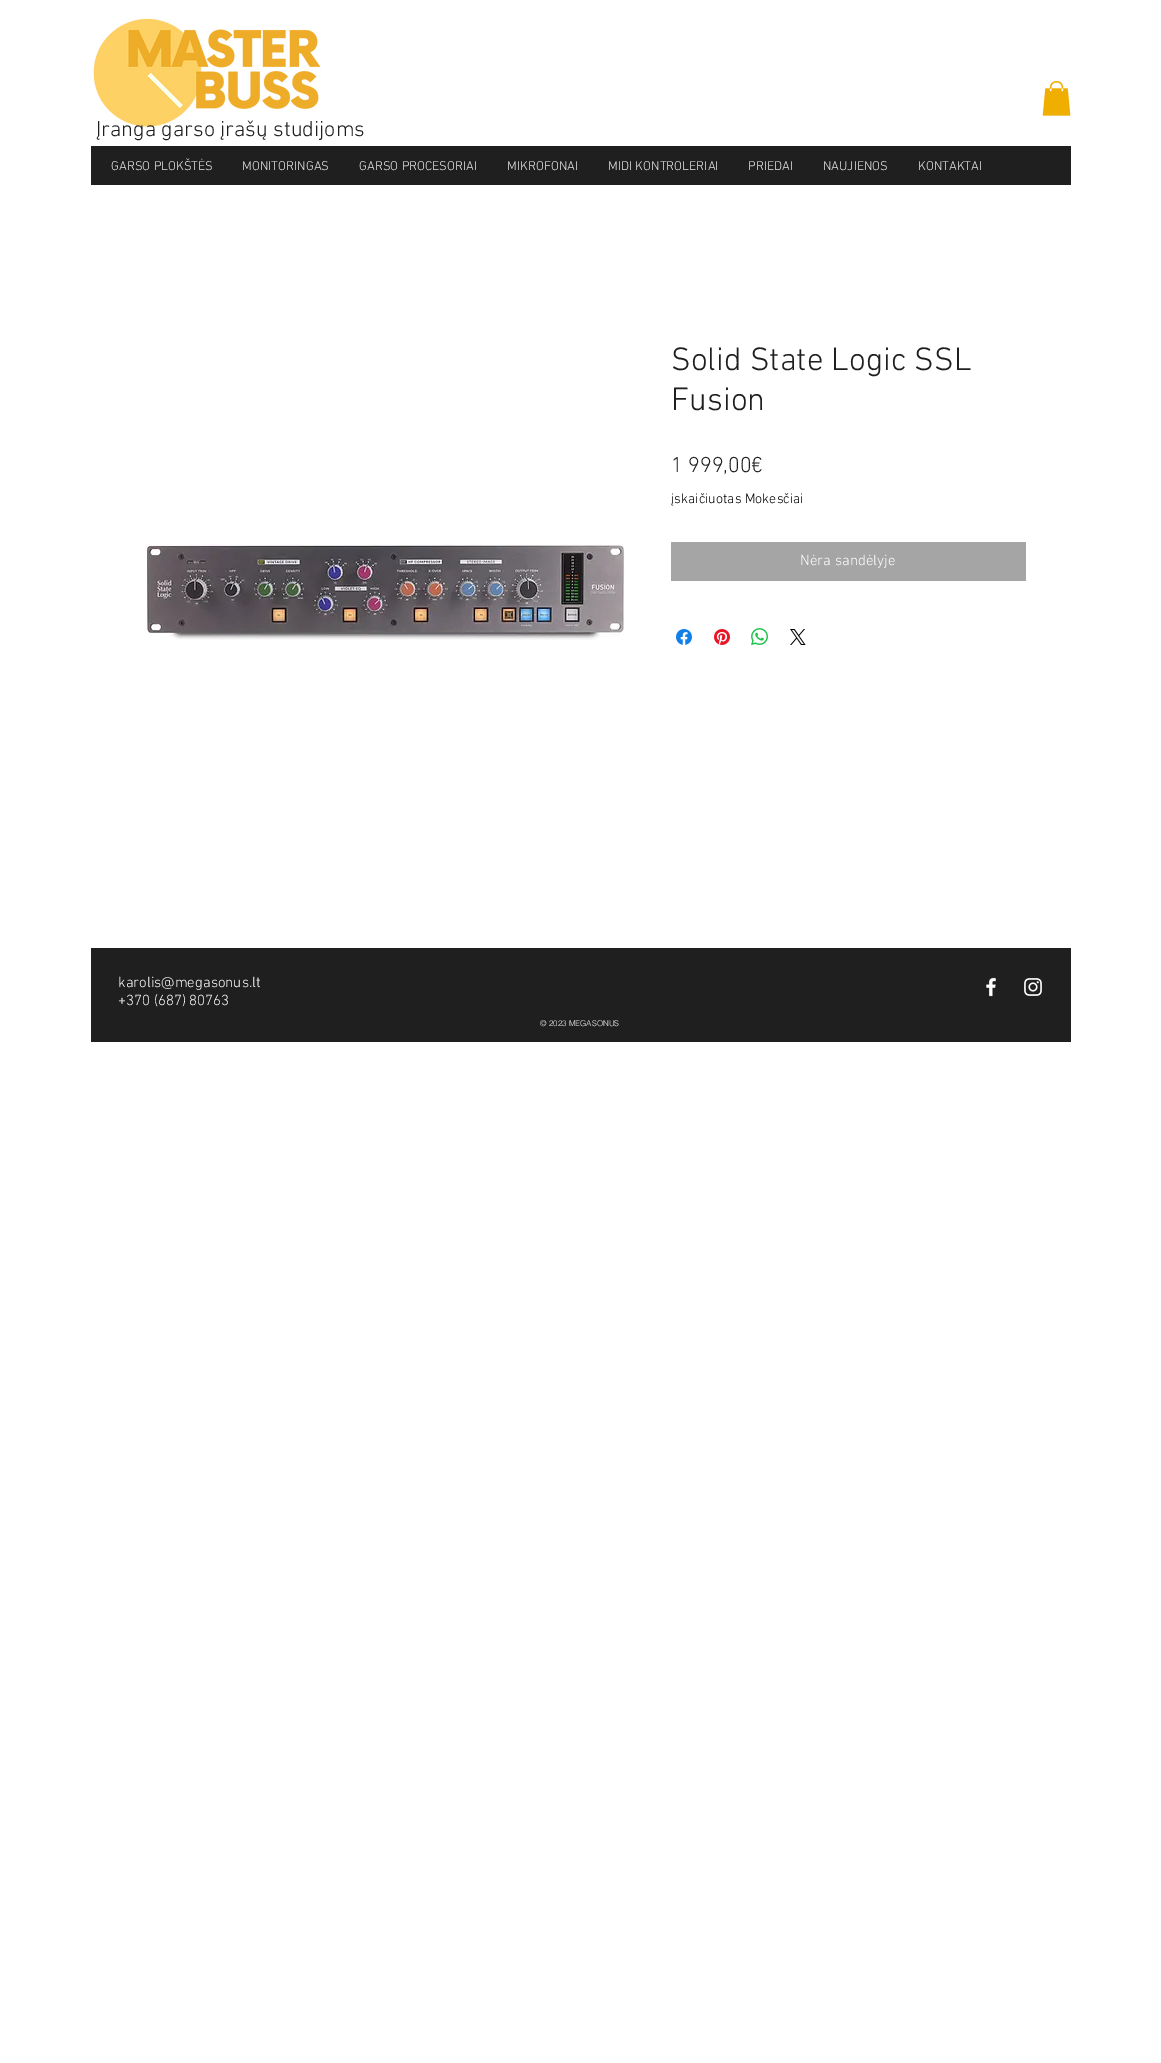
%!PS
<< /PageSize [1161 2063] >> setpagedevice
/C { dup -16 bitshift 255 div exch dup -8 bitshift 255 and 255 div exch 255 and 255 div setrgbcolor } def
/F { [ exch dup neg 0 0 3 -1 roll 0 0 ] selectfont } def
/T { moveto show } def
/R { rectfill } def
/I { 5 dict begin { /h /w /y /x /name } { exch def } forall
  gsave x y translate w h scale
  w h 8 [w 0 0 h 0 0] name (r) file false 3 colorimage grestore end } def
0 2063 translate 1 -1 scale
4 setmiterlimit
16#FFFFFF C
0 0 1161 2063 R
(1.rgb) 93 18 228 109 I
(2.rgb) 1042 81 29 35 I
/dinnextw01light-Light 22 F
16#1F1F1F C
(Įranga garso įrašų studijoms) 96 136 T
91 146 980 39 R
/dinnextw01light-Light 13 F
16#EEEEEE C
(GARSO PLOKŠTĖS) 111 170 T
(MONITORINGAS) 242 170 T
(GARSO PROCESORIAI) 359 170 T
(MIKROFONAI) 507 170 T
(MIDI KONTROLERIAI) 608 170 T
(PRIEDAI) 748 170 T
(NAUJIENOS) 823 170 T
(KONTAKTAI) 918 170 T
/dinnextw01light-Light 33 F
16#1F1F1F C
(Solid State Logic SSL) 671 370 T
(Fusion) 671 410 T
/dinnextw01light-Light 22 F
(1 999,00€) 671 472 T
/dinnextw01light-Light 14 F
16#000000 C
(įskaičiuotas Mokesčiai) 671 503 T
16#A5A5A5 C
671 542 355 39 R
/dinnextw01light-Light 15 F
16#FFFFFF C
(Nėra sandėlyje) 800 565 T
(3.rgb) 676 629 16 16 I
(4.rgb) 714 629 16 16 I
(5.rgb) 751 628 17 17 I
(6.rgb) 790 629 16 16 I
(7.rgb) 145 544 480 96 I
16#1F1F1F C
91 948 980 94 R
16#FFFFFF C
(karolis@megasonus.lt) 118 987 T
(+370 \(687\) 80763) 118 1005 T
(8.rgb) 986 977 10 20 I
(9.rgb) 1024 978 18 18 I
/helvetica-Light 8 F
16#EEEEEE C
(© 2023 MEGASONUS) 540 1026 T
showpage
